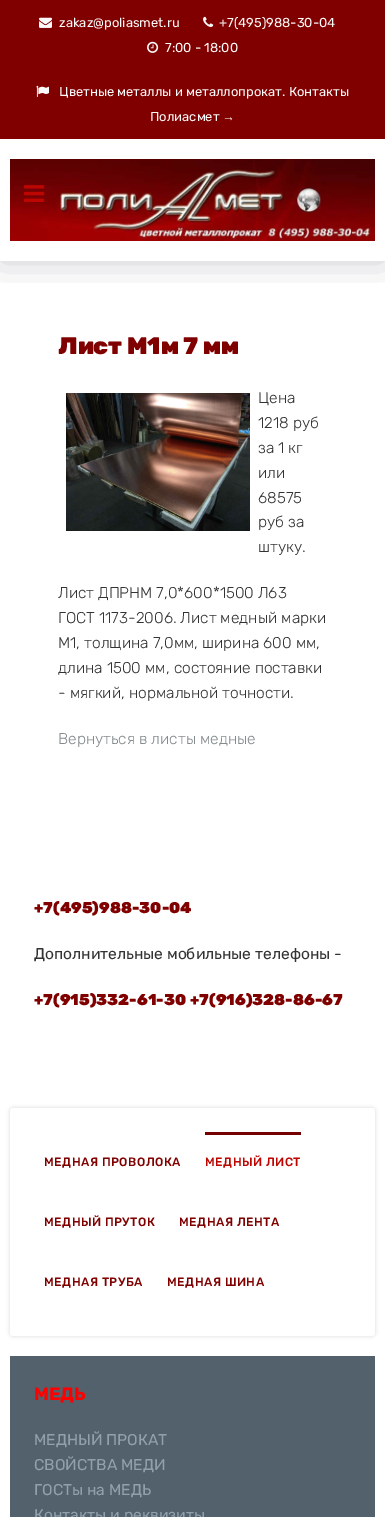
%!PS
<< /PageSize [385 1517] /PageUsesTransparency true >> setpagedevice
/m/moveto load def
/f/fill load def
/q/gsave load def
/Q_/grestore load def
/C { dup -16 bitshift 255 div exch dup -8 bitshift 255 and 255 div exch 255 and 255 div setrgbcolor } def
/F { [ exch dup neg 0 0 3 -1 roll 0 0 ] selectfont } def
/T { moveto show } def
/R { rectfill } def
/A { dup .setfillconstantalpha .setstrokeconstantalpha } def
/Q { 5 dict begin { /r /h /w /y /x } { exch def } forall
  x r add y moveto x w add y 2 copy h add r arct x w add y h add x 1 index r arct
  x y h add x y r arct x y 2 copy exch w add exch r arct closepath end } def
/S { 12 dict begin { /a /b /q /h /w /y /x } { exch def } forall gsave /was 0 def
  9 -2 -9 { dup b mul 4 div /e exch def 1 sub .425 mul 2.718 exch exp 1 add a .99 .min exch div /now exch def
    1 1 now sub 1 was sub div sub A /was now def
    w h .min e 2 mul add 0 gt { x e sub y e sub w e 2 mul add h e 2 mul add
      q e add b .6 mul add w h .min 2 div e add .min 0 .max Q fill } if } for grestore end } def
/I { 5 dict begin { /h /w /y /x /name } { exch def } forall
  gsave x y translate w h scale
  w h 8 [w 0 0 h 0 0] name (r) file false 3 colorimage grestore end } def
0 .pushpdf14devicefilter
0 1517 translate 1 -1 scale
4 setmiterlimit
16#FFFFFF C
0 0 385 1517 R
q
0 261 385 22 rectclip
16#020620 C
0 139 385 122 0 17.5 .2 S
Q_
16#800000 C
0 0 385 139 R
(1.rgb) 39 17 13 11 I
/Rubik-Regular 13 F
16#FAFAFA C
(zakaz@poliasmet.ru) 59 27 T
(2.rgb) 203 16 11 11 I
(+7\(495\)988-30-04) 219 27 T
(3.rgb) 147 41 12 12 I
(7:00 - 18:00) 165 52 T
(4.rgb) 36 85 13 12 I
(Цветные металлы и металлопрокат. Контакты) 59 96 T
(Полиасмет) 150 121 T
/LiberationSerif-Regular 13 F
(→) 222 121 T
(5.rgb) 10 159 365 82 I
(6.rgb) 24 185 21 17 I
/Rubik-Black 24 F
16#800000 C
(Лист М1м 7 мм) 58 354 T
(7.rgb) 66 393 184 138 I
/Rubik-Light 15.6 F
16#333333 C
(Цена) 258 403 T
(1218 руб) 258 428 T
(за 1 кг) 258 453 T
(или) 258 478 T
(68575) 258 503 T
(руб за) 258 527 T
(штуку.) 258 552 T
(Лист ДПРНМ 7,0*600*1500 Л63) 58 598 T
(ГОСТ 1173-2006. Лист медный марки) 58 623 T
(М1, толщина 7,0мм, ширина 600 мм,) 58 648 T
(длина 1500 мм, состояние поставки) 58 673 T
(- мягкий, нормальной точности.) 58 698 T
16#838B8C C
(Вернуться в листы медные) 58 744 T
/Rubik-Black 15.6 F
16#800000 C
(+7\(495\)988-30-04) 34 913 T
/Rubik-Regular 15.6 F
16#333333 C
(Дополнительные мобильные телефоны -) 34 959 T
/Rubik-Black 15.6 F
16#800000 C
(+7\(915\)332-61-30) 34 1005 T
(+7\(916\)328-86-67) 190 1005 T
16#000000 C
10 1108 365 228 3 2 .15 S
16#FFFFFF C
10 1108 365 228 3 Q f
/Rubik-Medium 12 F
16#800000 C
44 1166 m .5 0 (МЕДНАЯ ПРОВОЛОКА) ashow
16#760000 C
205 1132 96 3 R
16#BD0502 C
205 1166 m .5 0 (МЕДНЫЙ ЛИСТ) ashow
16#800000 C
44 1226 m .5 0 (МЕДНЫЙ ПРУТОК) ashow
179 1226 m .5 0 (МЕДНАЯ ЛЕНТА) ashow
44 1286 m .5 0 (МЕДНАЯ ТРУБА) ashow
167 1286 m .5 0 (МЕДНАЯ ШИНА) ashow
16#52616B C
10 1356 365 161 R
/Rubik-Bold 18 F
16#FF0000 C
(МЕДЬ) 34 1400 T
/Rubik-Regular 15.6 F
16#91A1AB C
(МЕДНЫЙ ПРОКАТ) 34 1445 T
(СВОЙСТВА МЕДИ) 34 1470 T
(ГОСТы на МЕДЬ) 34 1495 T
(Контакты и реквизиты) 34 1520 T
.poppdf14devicefilter showpage
